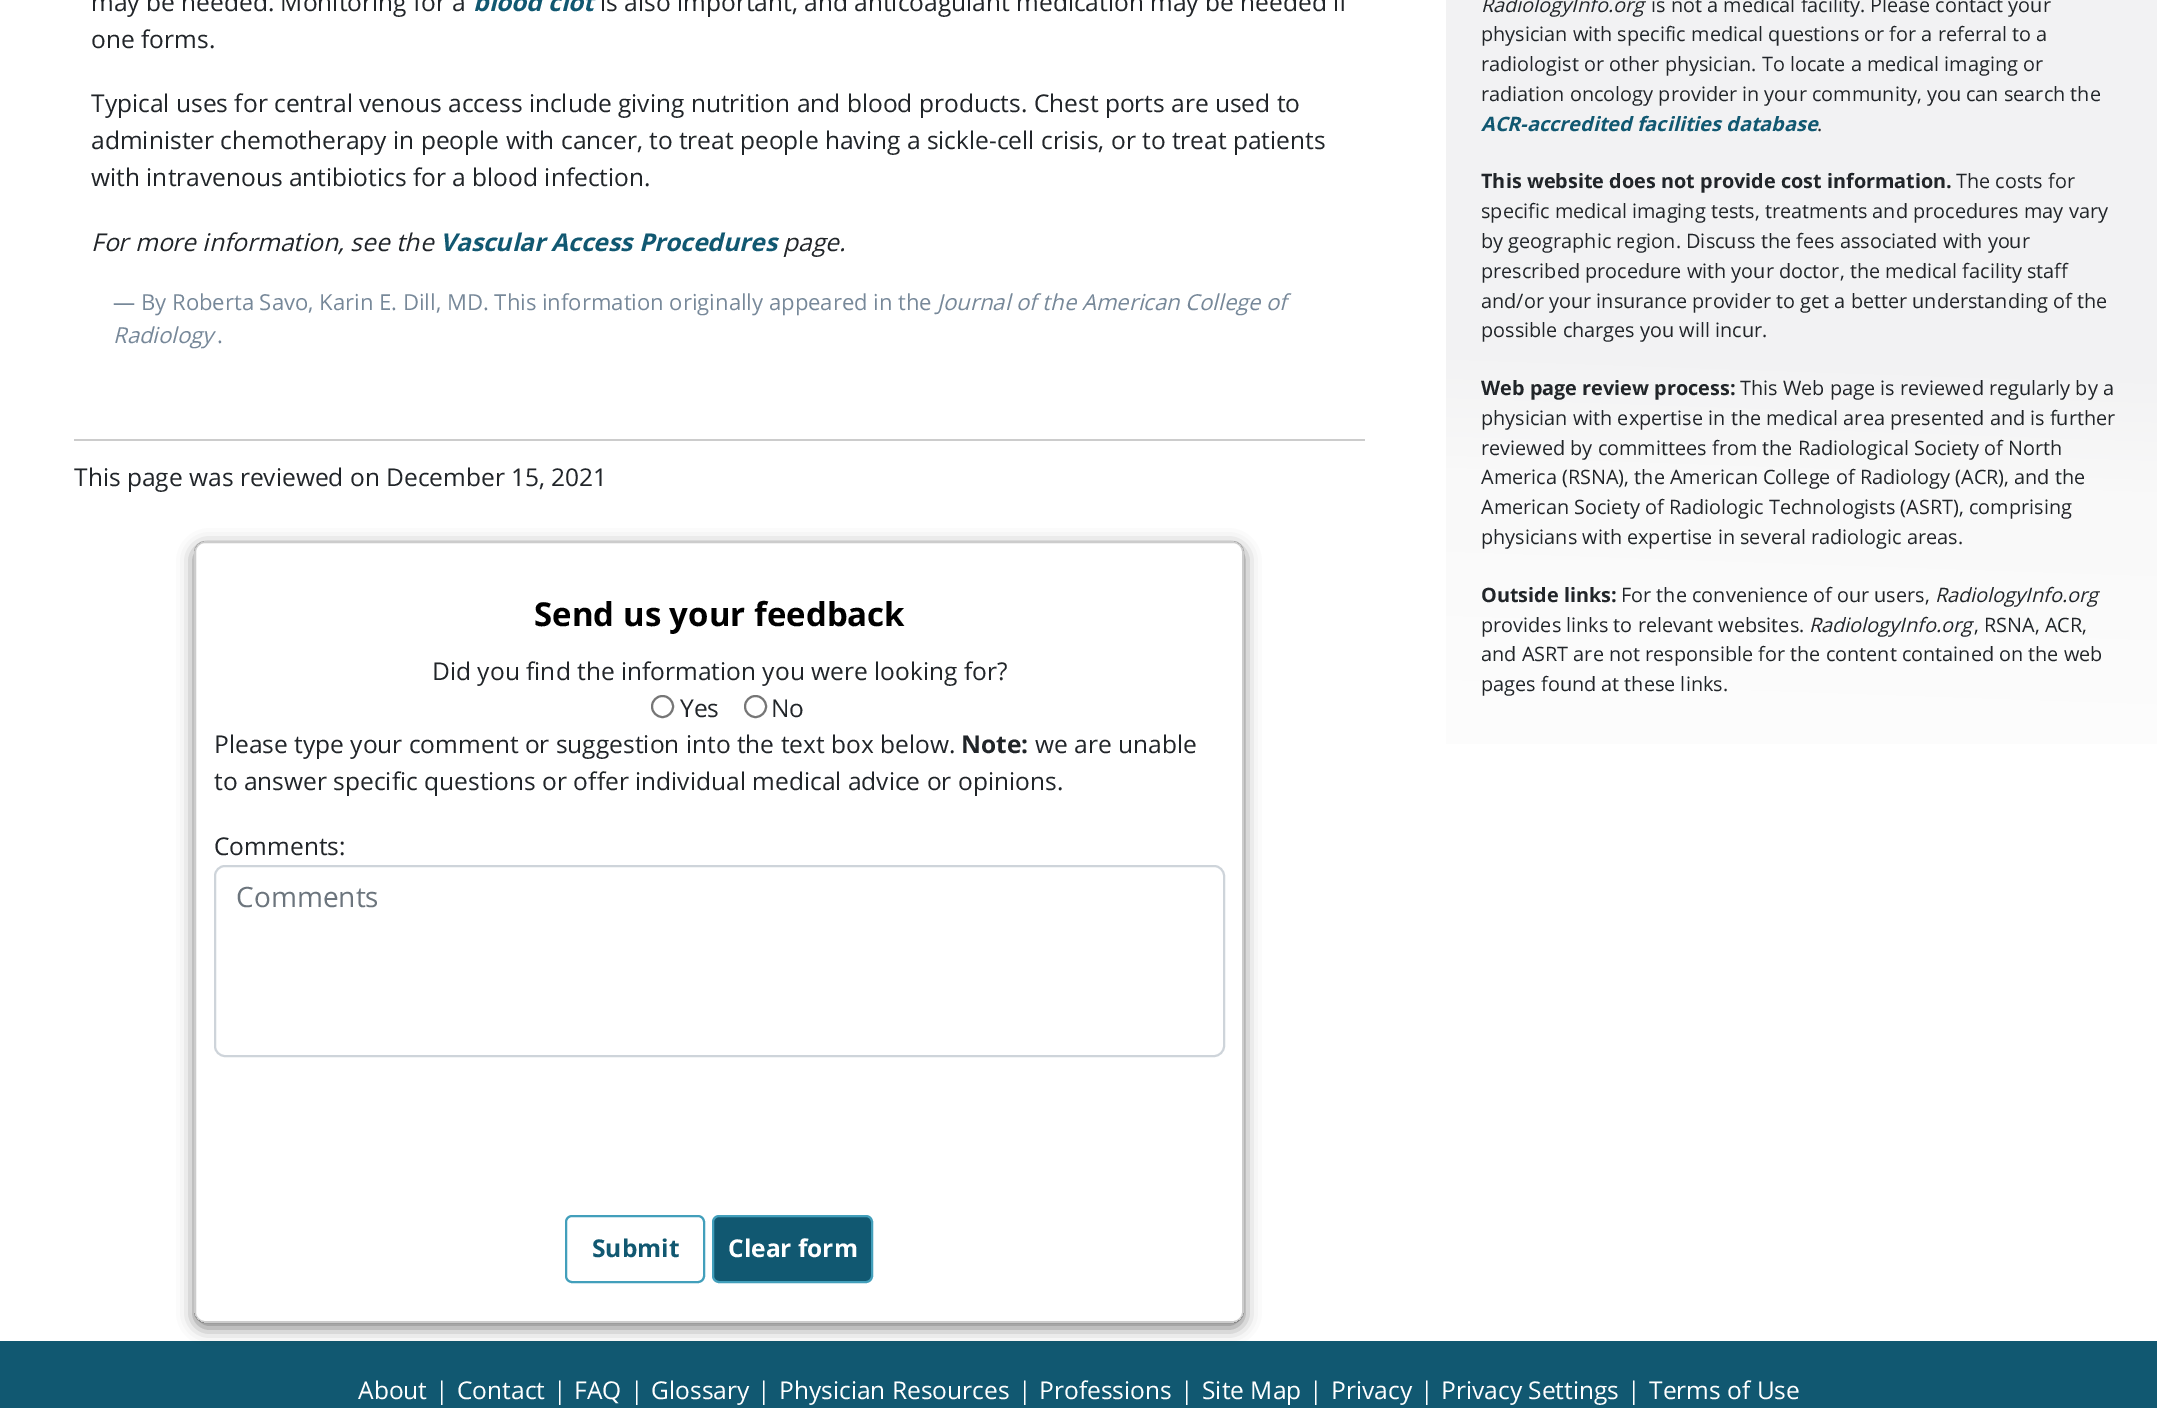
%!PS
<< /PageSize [2157 1408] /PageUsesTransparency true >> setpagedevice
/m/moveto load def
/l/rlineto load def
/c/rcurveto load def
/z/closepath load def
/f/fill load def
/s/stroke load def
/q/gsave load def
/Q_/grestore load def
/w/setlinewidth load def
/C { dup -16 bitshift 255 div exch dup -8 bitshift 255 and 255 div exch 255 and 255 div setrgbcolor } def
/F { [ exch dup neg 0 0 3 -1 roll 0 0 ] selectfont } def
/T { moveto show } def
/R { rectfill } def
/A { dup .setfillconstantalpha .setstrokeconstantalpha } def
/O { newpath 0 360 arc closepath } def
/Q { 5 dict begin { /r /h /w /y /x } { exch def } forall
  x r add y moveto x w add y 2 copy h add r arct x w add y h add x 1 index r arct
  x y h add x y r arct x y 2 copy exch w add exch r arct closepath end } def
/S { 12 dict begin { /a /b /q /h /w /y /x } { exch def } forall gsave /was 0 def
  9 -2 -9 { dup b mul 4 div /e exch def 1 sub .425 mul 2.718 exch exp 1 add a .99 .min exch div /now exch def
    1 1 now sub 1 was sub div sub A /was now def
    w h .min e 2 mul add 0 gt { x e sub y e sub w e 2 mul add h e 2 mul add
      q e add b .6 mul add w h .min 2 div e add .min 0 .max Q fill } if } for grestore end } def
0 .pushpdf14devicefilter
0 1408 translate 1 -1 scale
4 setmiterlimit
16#FFFFFF C
0 0 2157 1408 R
/OpenSans-Regular 24.5 F
16#212529 C
(may be needed. Monitoring for a) 91 11 T
/OpenSans-BoldItalic 24.5 F
16#115871 C
(blood clot) 473 11 T
/OpenSans-Regular 24.5 F
16#212529 C
(is also important, and anticoagulant medication may be needed if) 600 11 T
(one forms.) 91 48 T
(Typical uses for central venous access include giving nutrition and blood products. Chest ports are used to) 91 112 T
(administer chemotherapy in people with cancer, to treat people having a sickle-cell crisis, or to treat patients) 91 149 T
(with intravenous antibiotics for a blood infection.) 91 186 T
/OpenSans-Italic 24.5 F
(For more information, see the) 91 251 T
/OpenSans-BoldItalic 24.5 F
16#115871 C
(Vascular Access Procedures) 440 251 T
/OpenSans-Italic 24.5 F
16#212529 C
(page.) 783 251 T
/OpenSans-Regular 22.05 F
16#778899 C
(— By Roberta Savo, Karin E. Dill, MD. This information originally appeared in the) 113 310 T
/OpenSans-Italic 22.05 F
(Journal of the American College of) 937 310 T
(Radiology) 113 343 T
/OpenSans-Regular 22.05 F
(.) 217 343 T
16#CCCCCC C
74 439 1291 2 R
/OpenSans-Regular 24.5 F
16#212529 C
(This page was reviewed on December 15, 2021) 74 486 T
16#115871 C
0 1341 2157 67 R
q
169 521 m 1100 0 l 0 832 l -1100 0 l z 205 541 m 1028 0 l 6 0 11 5 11 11 c 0 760 l 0 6 -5 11 -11 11 c -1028 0 l -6 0 -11 -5 -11 -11 c 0 -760 l 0 -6 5 -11 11 -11 c z eoclip newpath
16#000000 C
194 546 1050 782 11 8 .5 S
Q_
0.2 A
16#000000 C
2 w
195 542 1048 780 10 Q s
/OpenSans-Bold 33 F
1 A
(Send us your feedback) 534 626 T
/OpenSans-Regular 24.5 F
16#212529 C
(Did you find the information you were looking for?) 432 680 T
16#767676 C
662.5 706.5 10.5 O s
16#212529 C
(Yes) 680 717 T
16#767676 C
755.5 706.5 10.5 O s
16#212529 C
(No) 771 717 T
(Please type your comment or suggestion into the text box below.) 214 753 T
/OpenSans-Bold 24.5 F
(Note:) 961 753 T
/OpenSans-Regular 24.5 F
(we are unable) 1035 753 T
(to answer specific questions or offer individual medical advice or opinions.) 214 790 T
(Comments:) 214 855 T
16#CED4DA C
215 866 1009 190 10 Q s
/OpenSans-Regular 28 F
16#6C757D C
(Comments) 236 907 T
16#429FBB C
566 1216 138 66 6 Q s
/OpenSans-Bold 24.5 F
16#115871 C
(Submit) 592 1257 T
713 1216 159 66 6 Q q f Q_
16#429FBB C
s
16#FFFFFF C
(Clear form) 728 1257 T
q 1446 0 m 711 0 l 0 744 l -711 0 l z clip newpath
<< /ShadingType 2 /ColorSpace /DeviceRGB /Coords [1784 904 1819 -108] /Extend [true true] /Function << /FunctionType 3 /Domain [0 1] /Functions [<< /FunctionType 2 /Domain [0 1] /C0 [1 1 1] /C1 [.976 .976 .976] /N 1 >> << /FunctionType 2 /Domain [0 1] /C0 [.976 .976 .976] /C1 [.949 .949 .953] /N 1 >> << /FunctionType 2 /Domain [0 1] /C0 [.949 .949 .953] /C1 [.949 .949 .953] /N 1 >>] /Bounds [.41 .55] /Encode [0 1 0 1 0 1] >> >> shfill Q_
/OpenSans-Italic 19.85 F
16#212529 C
(RadiologyInfo.org) 1481 12 T
/OpenSans-Regular 19.85 F
(is not a medical facility. Please contact your) 1651 12 T
(physician with specific medical questions or for a referral to a) 1481 41 T
(radiologist or other physician. To locate a medical imaging or) 1481 71 T
(radiation oncology provider in your community, you can search the) 1481 101 T
/OpenSans-BoldItalic 19.85 F
16#115871 C
(ACR-accredited facilities database) 1481 131 T
/OpenSans-Regular 19.85 F
16#212529 C
(.) 1817 131 T
/OpenSans-Bold 19.85 F
(This website does not provide cost information.) 1481 188 T
/OpenSans-Regular 19.85 F
(The costs for) 1956 188 T
(specific medical imaging tests, treatments and procedures may vary) 1481 218 T
(by geographic region. Discuss the fees associated with your) 1481 248 T
(prescribed procedure with your doctor, the medical facility staff) 1481 278 T
(and/or your insurance provider to get a better understanding of the) 1481 308 T
(possible charges you will incur.) 1481 337 T
/OpenSans-Bold 19.85 F
(Web page review process:) 1481 395 T
/OpenSans-Regular 19.85 F
(This Web page is reviewed regularly by a) 1740 395 T
(physician with expertise in the medical area presented and is further) 1481 425 T
(reviewed by committees from the Radiological Society of North) 1481 455 T
(America \(RSNA\), the American College of Radiology \(ACR\), and the) 1481 484 T
(American Society of Radiologic Technologists \(ASRT\), comprising) 1481 514 T
(physicians with expertise in several radiologic areas.) 1481 544 T
/OpenSans-Bold 19.85 F
(Outside links:) 1481 602 T
/OpenSans-Regular 19.85 F
(For the convenience of our users,) 1621 602 T
/OpenSans-Italic 19.85 F
(RadiologyInfo.org) 1935 602 T
/OpenSans-Regular 19.85 F
(provides links to relevant websites.) 1481 632 T
/OpenSans-Italic 19.85 F
(RadiologyInfo.org) 1809 632 T
/OpenSans-Regular 19.85 F
(, RSNA, ACR,) 1974 632 T
(and ASRT are not responsible for the content contained on the web) 1481 661 T
(pages found at these links.) 1481 691 T
/OpenSans-Regular 24.5 F
16#FFFFFF C
(About) 358 1399 T
(|) 435 1399 T
(Contact) 457 1399 T
(|) 553 1399 T
(FAQ) 574 1399 T
(|) 630 1399 T
(Glossary) 651 1399 T
(|) 757 1399 T
(Physician Resources) 779 1399 T
(|) 1018 1399 T
(Professions) 1039 1399 T
(|) 1180 1399 T
(Site Map) 1202 1399 T
(|) 1309 1399 T
(Privacy) 1331 1399 T
(|) 1420 1399 T
(Privacy Settings) 1441 1399 T
(|) 1627 1399 T
(Terms of Use) 1649 1399 T
.poppdf14devicefilter showpage
